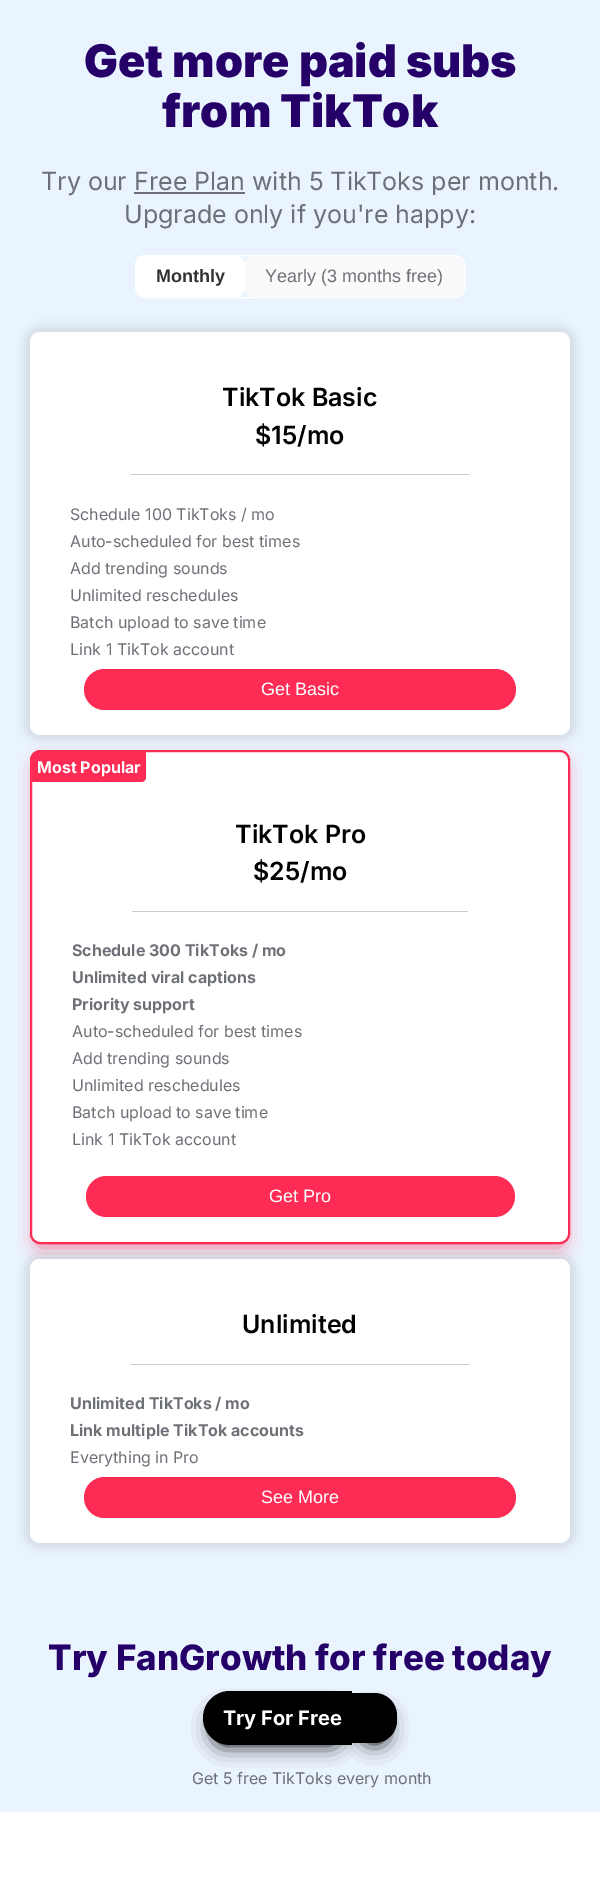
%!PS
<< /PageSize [600 1877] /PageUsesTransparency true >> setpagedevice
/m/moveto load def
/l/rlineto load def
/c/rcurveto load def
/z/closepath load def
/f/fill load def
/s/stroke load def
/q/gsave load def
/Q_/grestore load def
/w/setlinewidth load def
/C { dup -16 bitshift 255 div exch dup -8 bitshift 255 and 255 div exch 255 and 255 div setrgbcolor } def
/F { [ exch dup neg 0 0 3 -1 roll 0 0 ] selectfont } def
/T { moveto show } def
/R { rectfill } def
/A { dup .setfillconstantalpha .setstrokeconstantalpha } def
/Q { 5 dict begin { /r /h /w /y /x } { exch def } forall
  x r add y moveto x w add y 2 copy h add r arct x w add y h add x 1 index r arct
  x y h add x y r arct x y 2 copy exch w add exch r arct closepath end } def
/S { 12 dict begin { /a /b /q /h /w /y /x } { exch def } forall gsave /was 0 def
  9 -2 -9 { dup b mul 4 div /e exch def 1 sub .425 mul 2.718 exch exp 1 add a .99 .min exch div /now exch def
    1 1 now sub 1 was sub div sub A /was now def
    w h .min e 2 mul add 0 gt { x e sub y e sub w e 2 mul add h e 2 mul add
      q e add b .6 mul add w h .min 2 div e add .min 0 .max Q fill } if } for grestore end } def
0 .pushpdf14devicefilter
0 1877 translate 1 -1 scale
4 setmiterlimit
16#FFFFFF C
0 0 600 1877 R
16#EAF4FE C
0 0 600 1812 R
/Inter-Black 45 F
16#250069 C
(Get more paid subs) 84 77 T
(from TikTok) 162 127 T
/Inter-Regular 25 F
16#6D7076 C
(Try our Free Plan with 5 TikToks per month.) 41 190 T
134 192 111 2 R
(Upgrade only if you're happy:) 124 223 T
16#FFFFFF C
135.5 255.5 329 42 9.5 Q s
136 256 109 41 10 Q f
/LiberationSans-Bold 18 F
16#333333 C
(Monthly) 156 282 T
16#FAFAFB C
245 256 219 41 10 Q f
/LiberationSans-Regular 18 F
16#6D7076 C
(Yearly \(3 months free\)) 265 282 T
16#000000 C
25 327 550 413 15 5 .1 S
16#FFFFFF C
30 332 540 403 10 Q f
/Inter-SemiBold 25 F
16#000000 C
(TikTok Basic) 222 406 T
($15/mo) 255 444 T
16#CCCCCC C
131 474 338 1 R
/Inter-Regular 16 F
16#6D7076 C
(Schedule 100 TikToks / mo) 70 520 T
(Auto-scheduled for best times) 70 547 T
(Add trending sounds) 70 574 T
(Unlimited reschedules) 70 601 T
(Batch upload to save time) 70 628 T
(Link 1 TikTok account) 70 655 T
16#FE2C55 C
84 669 432 41 20.5 Q f
/LiberationSans-Regular 18 F
16#FFFFFF C
(Get Basic) 261 695 T
16#FE2C55 C
40 768 520 474 0 10 1 S
16#FFFFFF C
31 751 538 492 9 Q q f Q_
16#FE2C55 C
2 w
s
37 752 m 109 0 l 0 25 l 0 3 -2 5 -5 5 c -109 0 l 0 -25 l 0 -3 2 -5 5 -5 c z f
/Inter-Bold 16 F
16#FFFFFF C
(Most Popular) 37 773 T
/Inter-SemiBold 25 F
16#000000 C
(TikTok Pro) 235 843 T
($25/mo) 253 880 T
16#CCCCCC C
132 911 336 1 R
/Inter-Bold 16 F
16#6D7076 C
(Schedule 300 TikToks / mo) 72 956 T
(Unlimited viral captions) 72 983 T
(Priority support) 72 1010 T
/Inter-Regular 16 F
(Auto-scheduled for best times) 72 1037 T
(Add trending sounds) 72 1064 T
(Unlimited reschedules) 72 1091 T
(Batch upload to save time) 72 1118 T
(Link 1 TikTok account) 72 1145 T
16#FE2C55 C
86 1176 429 41 20.5 Q f
/LiberationSans-Regular 18 F
16#FFFFFF C
(Get Pro) 269 1202 T
16#000000 C
25 1254 550 294 15 5 .1 S
16#FFFFFF C
30 1259 540 284 10 Q f
/Inter-SemiBold 25 F
16#000000 C
(Unlimited) 242 1333 T
16#CCCCCC C
131 1364 338 1 R
/Inter-Bold 16 F
16#6D7076 C
(Unlimited TikToks / mo) 70 1409 T
(Link multiple TikTok accounts) 70 1436 T
/Inter-Regular 16 F
(Everything in Pro) 70 1463 T
16#FE2C55 C
84 1477 432 41 20.5 Q f
/LiberationSans-Regular 18 F
16#FFFFFF C
(See More) 261 1503 T
/Inter-ExtraBold 35 F
16#250069 C
(Try FanGrowth for free today) 48 1670 T
16#000000 C
213 1711 129 34 17 10 1 S
230 1691 m 122 0 l 0 54 l -122 0 l -15 0 -27 -12 -27 -27 c 0 -15 12 -27 27 -27 c z f
362 1713 25 30 12.5 10 1 S
/Inter-Bold 20 F
16#FFFFFF C
(Try For Free) 223 1725 T
16#000000 C
352 1693 m 22.5 0 l 12.5 0 22.5 10 22.5 22.5 c 0 5 l 0 12.5 -10 22.5 -22.5 22.5 c -22.5 0 l z f
/Inter-Regular 16 F
16#6D7076 C
(Get 5 free TikToks every month) 192 1784 T
.poppdf14devicefilter showpage
